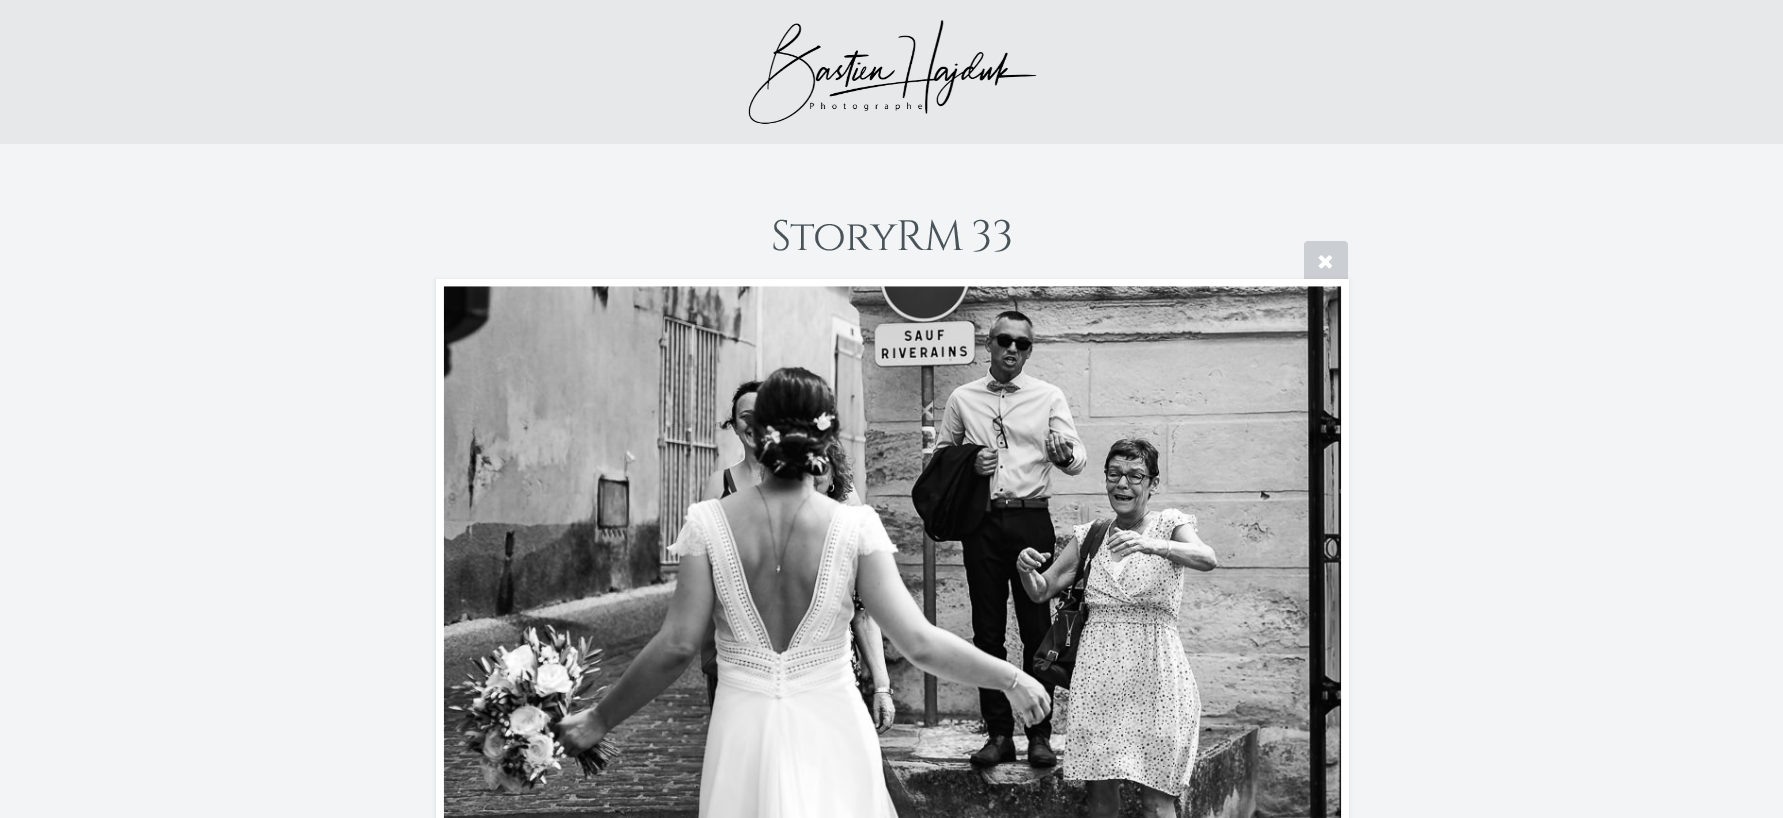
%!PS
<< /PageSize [1783 818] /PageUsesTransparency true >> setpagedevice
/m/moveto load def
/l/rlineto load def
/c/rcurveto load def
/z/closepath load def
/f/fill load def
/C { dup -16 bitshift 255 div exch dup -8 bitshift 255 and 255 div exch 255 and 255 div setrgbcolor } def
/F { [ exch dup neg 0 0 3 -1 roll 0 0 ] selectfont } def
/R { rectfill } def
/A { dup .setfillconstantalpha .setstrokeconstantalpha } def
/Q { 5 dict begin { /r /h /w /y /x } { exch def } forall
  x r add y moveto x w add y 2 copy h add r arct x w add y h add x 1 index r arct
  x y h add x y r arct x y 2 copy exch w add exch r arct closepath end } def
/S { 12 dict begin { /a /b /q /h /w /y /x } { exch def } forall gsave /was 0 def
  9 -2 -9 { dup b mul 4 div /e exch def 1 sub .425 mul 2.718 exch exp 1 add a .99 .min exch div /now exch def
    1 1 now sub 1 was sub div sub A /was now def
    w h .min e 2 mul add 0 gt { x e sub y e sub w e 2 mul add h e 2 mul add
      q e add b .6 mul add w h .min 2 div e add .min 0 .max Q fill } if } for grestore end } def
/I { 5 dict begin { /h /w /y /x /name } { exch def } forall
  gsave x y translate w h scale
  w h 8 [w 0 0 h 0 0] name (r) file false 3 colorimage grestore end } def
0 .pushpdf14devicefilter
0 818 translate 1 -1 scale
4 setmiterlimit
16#F3F4F5 C
0 0 1783 818 R
16#E6E8EA C
0 0 1783 144 R
(1.rgb) 748 20 289 104 I
/Cinzel-Regular 42.5 F
16#48545A C
771 250 m -1.25 0 (StoryRM 33) ashow
16#CBCFD4 C
1308 241 m 36 0 l 2 0 4 2 4 4 c 0 34 l -44 0 l 0 -34 l 0 -2 2 -4 4 -4 c z f
(2.rgb) 1318 255 14 14 I
16#000000 C
436 280 913 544 0 2 .1 S
16#FFFFFF C
436 279 913 539 R
(3.rgb) 443 286 899 532 I
.poppdf14devicefilter showpage
